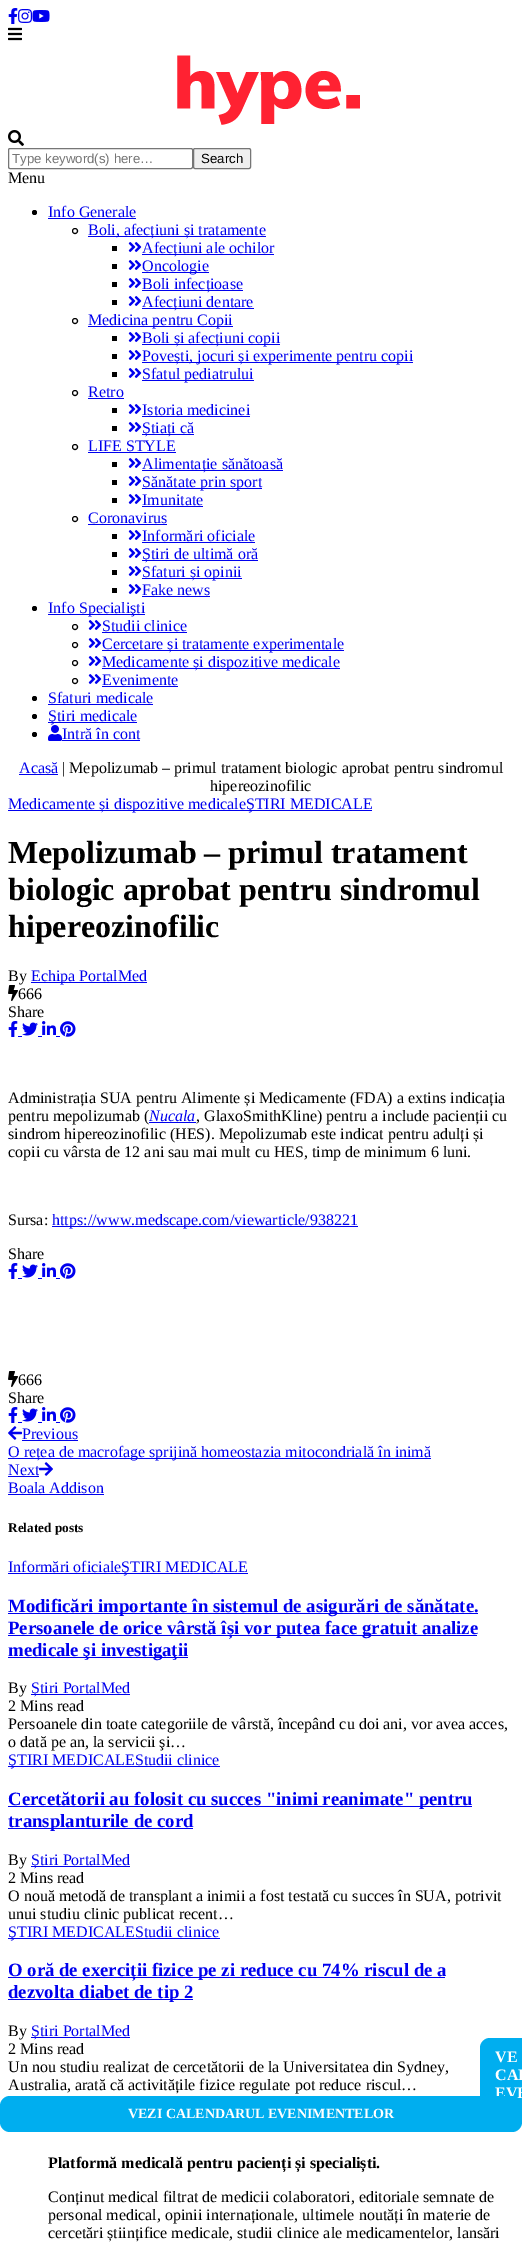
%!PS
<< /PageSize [522 2252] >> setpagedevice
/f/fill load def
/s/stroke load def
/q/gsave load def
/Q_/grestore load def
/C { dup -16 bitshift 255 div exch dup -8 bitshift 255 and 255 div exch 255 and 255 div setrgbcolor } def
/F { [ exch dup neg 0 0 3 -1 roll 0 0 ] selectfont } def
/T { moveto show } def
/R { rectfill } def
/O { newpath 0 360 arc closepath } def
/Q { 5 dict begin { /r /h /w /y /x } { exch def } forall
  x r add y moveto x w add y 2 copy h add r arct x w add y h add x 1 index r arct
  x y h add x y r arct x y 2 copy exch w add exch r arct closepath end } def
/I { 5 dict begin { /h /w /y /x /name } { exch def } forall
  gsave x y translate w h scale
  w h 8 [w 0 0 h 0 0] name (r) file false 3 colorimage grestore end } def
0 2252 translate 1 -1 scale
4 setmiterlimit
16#FFFFFF C
0 0 522 2252 R
(1.rgb) 8 8 10 16 I
(2.rgb) 18 9 15 14 I
(3.rgb) 32 10 18 12 I
(4.rgb) 8 27 14 14 I
(5.rgb) 177 55 183 70 I
(6.rgb) 8 130 16 16 I
16#767676 C
8.5 148.5 184 20 1.5 Q s
/LiberationSans-Regular 13.25 F
16#757575 C
(Type keyword\(s\) here…) 12 163 T
16#EFEFEF C
193.5 148.5 57 20 1.5 Q q f Q_
16#767676 C
s
16#000000 C
(Search) 201 163 T
/LiberationSerif-Regular 16 F
(Menu) 8 183 T
34.5 212.5 2.5 O f
16#0000EE C
(Info Generale) 48 217 T
48 218 88 1 R
16#000000 C
75 231 2.5 O s
16#0000EE C
88 236 178 1 R
(Boli, afecțiuni și tratamente) 88 235 T
16#000000 C
112 246 5 5 R
(7.rgb) 128 242 14 10 I
16#0000EE C
142 254 132 1 R
(Afecțiuni ale ochilor) 142 253 T
16#000000 C
112 264 5 5 R
(7.rgb) 128 260 14 10 I
16#0000EE C
142 272 67 1 R
(Oncologie) 142 271 T
16#000000 C
112 282 5 5 R
(7.rgb) 128 278 14 10 I
16#0000EE C
142 290 101 1 R
(Boli infecțioase) 142 289 T
16#000000 C
112 300 5 5 R
(7.rgb) 128 296 14 10 I
16#0000EE C
142 308 112 1 R
(Afecțiuni dentare) 142 307 T
16#000000 C
75 321 2.5 O s
16#0000EE C
88 326 145 1 R
(Medicina pentru Copii) 88 325 T
16#000000 C
112 336 5 5 R
(7.rgb) 128 332 14 10 I
16#0000EE C
142 344 138 1 R
(Boli și afecțiuni copii) 142 343 T
16#000000 C
112 354 5 5 R
(7.rgb) 128 350 14 10 I
16#0000EE C
142 362 271 1 R
(Povești, jocuri și experimente pentru copii) 142 361 T
16#000000 C
112 372 5 5 R
(7.rgb) 128 368 14 10 I
16#0000EE C
142 380 112 1 R
(Sfatul pediatrului) 142 379 T
16#000000 C
75 393 2.5 O s
16#0000EE C
(Retro) 88 397 T
88 398 36 1 R
16#000000 C
112 408 5 5 R
(7.rgb) 128 404 14 10 I
16#0000EE C
(Istoria medicinei) 142 415 T
142 416 108 1 R
16#000000 C
112 426 5 5 R
(7.rgb) 128 422 14 10 I
16#0000EE C
142 434 52 1 R
(Știați că) 142 433 T
16#000000 C
75 447 2.5 O s
16#0000EE C
(LIFE STYLE) 88 451 T
88 452 88 1 R
16#000000 C
112 462 5 5 R
(7.rgb) 128 458 14 10 I
16#0000EE C
142 470 141 1 R
(Alimentație sănătoasă) 142 469 T
16#000000 C
112 480 5 5 R
(7.rgb) 128 476 14 10 I
16#0000EE C
142 488 120 1 R
(Sănătate prin sport) 142 487 T
16#000000 C
112 498 5 5 R
(7.rgb) 128 494 14 10 I
16#0000EE C
(Imunitate) 142 505 T
142 506 61 1 R
16#000000 C
75 519 2.5 O s
16#0000EE C
(Coronavirus) 88 523 T
88 524 79 1 R
16#000000 C
112 534 5 5 R
(7.rgb) 128 530 14 10 I
16#0000EE C
(Informări oficiale) 142 541 T
142 542 113 1 R
16#000000 C
112 552 5 5 R
(7.rgb) 128 548 14 10 I
16#0000EE C
142 560 116 1 R
(Știri de ultimă oră) 142 559 T
16#000000 C
112 570 5 5 R
(7.rgb) 128 566 14 10 I
16#0000EE C
142 578 100 1 R
(Sfaturi și opinii) 142 577 T
16#000000 C
112 588 5 5 R
(7.rgb) 128 584 14 10 I
16#0000EE C
(Fake news) 142 595 T
142 596 68 1 R
16#000000 C
34.5 608.5 2.5 O f
16#0000EE C
48 614 97 1 R
(Info Specialişti) 48 613 T
16#000000 C
75 627 2.5 O s
(7.rgb) 88 620 14 10 I
16#0000EE C
(Studii clinice) 102 631 T
102 632 85 1 R
16#000000 C
75 645 2.5 O s
(7.rgb) 88 638 14 10 I
16#0000EE C
102 650 242 1 R
(Cercetare și tratamente experimentale) 102 649 T
16#000000 C
75 663 2.5 O s
(7.rgb) 88 656 14 10 I
16#0000EE C
102 668 238 1 R
(Medicamente și dispozitive medicale) 102 667 T
16#000000 C
75 681 2.5 O s
(7.rgb) 88 674 14 10 I
16#0000EE C
(Evenimente) 102 685 T
102 686 76 1 R
16#000000 C
34.5 698.5 2.5 O f
16#0000EE C
(Sfaturi medicale) 48 703 T
48 704 105 1 R
16#000000 C
34.5 716.5 2.5 O f
16#0000EE C
48 722 89 1 R
(Ştiri medicale) 48 721 T
16#000000 C
34.5 734.5 2.5 O f
(8.rgb) 48 725 14 16 I
16#0000EE C
(Intră în cont) 62 739 T
62 740 78 1 R
(Acasă) 19 773 T
19 774 39 1 R
16#000000 C
(| Mepolizumab – primul tratament biologic aprobat pentru sindromul) 62 773 T
(hipereozinofilic) 210 791 T
16#0000EE C
8 810 364 1 R
(Medicamente și dispozitive medicaleŞTIRI MEDICALE) 8 809 T
/LiberationSerif-Bold 32 F
16#000000 C
(Mepolizumab – primul tratament) 8 863 T
(biologic aprobat pentru sindromul) 8 900 T
(hipereozinofilic) 8 937 T
/LiberationSerif-Regular 16 F
(By) 8 981 T
16#0000EE C
31 982 116 1 R
(Echipa PortalMed) 31 981 T
(9.rgb) 8 985 10 16 I
16#000000 C
(666) 18 999 T
(Share) 8 1017 T
(1.rgb) 8 1021 10 16 I
(10.rgb) 22 1022 16 14 I
16#0000EE C
18 1036 4 1 R
(11.rgb) 42 1021 14 14 I
38 1036 4 1 R
56 1036 4 1 R
(12.rgb) 60 1021 16 16 I
16#000000 C
(Administrația SUA pentru Alimente și Medicamente \(FDA\) a extins indicația) 8 1103 T
(pentru mepolizumab \() 8 1121 T
/LiberationSerif-Italic 16 F
16#0000EE C
(Nucala) 149 1121 T
149 1122 47 1 R
/LiberationSerif-Regular 16 F
16#000000 C
(, GlaxoSmithKline\) pentru a include pacienții cu) 196 1121 T
(sindrom hipereozinofilic \(HES\). Mepolizumab este indicat pentru adulți și) 8 1139 T
(copii cu vârsta de 12 ani sau mai mult cu HES, timp de minimum 6 luni.) 8 1157 T
(Sursa:) 8 1225 T
16#0000EE C
52 1226 306 1 R
(https://www.medscape.com/viewarticle/938221) 52 1225 T
16#000000 C
(Share) 8 1259 T
(1.rgb) 8 1263 10 16 I
(10.rgb) 22 1264 16 14 I
16#0000EE C
18 1278 4 1 R
(11.rgb) 42 1263 14 14 I
38 1278 4 1 R
56 1278 4 1 R
(12.rgb) 60 1263 16 16 I
16#00AEEF C
480 2038 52 74 10 Q f
/LiberationSerif-Bold 16 F
16#FFFFFF C
(VE) 495 2062 T
(CAL) 495 2080 T
(EVE) 495 2098 T
16#00AEEF C
0 2096 522 36 10 Q f
/LiberationSerif-Bold 14 F
16#FFFFFF C
(VEZI CALENDARUL EVENIMENTELOR) 128 2118 T
(9.rgb) 8 1371 10 16 I
/LiberationSerif-Regular 16 F
16#000000 C
(666) 18 1385 T
(Share) 8 1403 T
(1.rgb) 8 1407 10 16 I
(10.rgb) 22 1408 16 14 I
16#0000EE C
18 1422 4 1 R
(11.rgb) 42 1407 14 14 I
38 1422 4 1 R
56 1422 4 1 R
(12.rgb) 60 1407 16 16 I
(13.rgb) 8 1426 14 14 I
(Previous) 22 1439 T
22 1440 56 1 R
8 1458 423 1 R
(O rețea de macrofage sprijină homeostazia mitocondrială în inimă) 8 1457 T
(Next) 8 1475 T
8 1476 31 1 R
(14.rgb) 39 1462 14 14 I
(Boala Addison) 8 1493 T
8 1494 96 1 R
/LiberationSerif-Bold 13.25 F
16#000000 C
(Related posts) 8 1532 T
16#0000EE C
8 1573 240 1 R
/LiberationSerif-Regular 16 F
(Informări oficialeŞTIRI MEDICALE) 8 1572 T
8 1613 470 1 R
/LiberationSerif-Bold 18.75 F
(Modificări importante în sistemul de asigurări de sănătate.) 8 1612 T
8 1635 469 1 R
(Persoanele de orice vârstă își vor putea face gratuit analize) 8 1634 T
8 1657 180 1 R
(medicale şi investigaţii) 8 1656 T
/LiberationSerif-Regular 16 F
16#000000 C
(By) 8 1693 T
16#0000EE C
31 1694 99 1 R
(Știri PortalMed) 31 1693 T
16#000000 C
(2 Mins read) 8 1711 T
(Persoanele din toate categoriile de vârstă, începând cu doi ani, vor avea acces,) 8 1729 T
(o dată pe an, la servicii şi…) 8 1747 T
16#0000EE C
8 1766 212 1 R
(ŞTIRI MEDICALEStudii clinice) 8 1765 T
8 1806 464 1 R
/LiberationSerif-Bold 18.75 F
(Cercetătorii au folosit cu succes "inimi reanimate" pentru) 8 1805 T
8 1828 185 1 R
(transplanturile de cord) 8 1827 T
/LiberationSerif-Regular 16 F
16#000000 C
(By) 8 1865 T
16#0000EE C
31 1866 99 1 R
(Știri PortalMed) 31 1865 T
16#000000 C
(2 Mins read) 8 1883 T
(O nouă metodă de transplant a inimii a fost testată cu succes în SUA, potrivit) 8 1901 T
(unui studiu clinic publicat recent…) 8 1919 T
16#0000EE C
8 1938 212 1 R
(ŞTIRI MEDICALEStudii clinice) 8 1937 T
8 1977 437 1 R
/LiberationSerif-Bold 18.75 F
(O oră de exerciții fizice pe zi reduce cu 74% riscul de a) 8 1976 T
8 1999 185 1 R
(dezvolta diabet de tip 2) 8 1998 T
/LiberationSerif-Regular 16 F
16#000000 C
(By) 8 2036 T
16#0000EE C
31 2037 99 1 R
(Știri PortalMed) 31 2036 T
16#000000 C
(2 Mins read) 8 2054 T
(Un nou studiu realizat de cercetătorii de la Universitatea din Sydney,) 8 2072 T
(Australia, arată că activitățile fizice regulate pot reduce riscul…) 8 2090 T
/LiberationSerif-Bold 16 F
(Platformă medicală pentru pacienți și specialiști.) 48 2168 T
/LiberationSerif-Regular 16 F
(Conținut medical filtrat de medicii colaboratori, editoriale semnate de) 48 2202 T
(personal medical, opinii internaționale, ultimele noutăți în materie de) 48 2220 T
(cercetări științifice medicale, studii clinice ale medicamentelor, lansări) 48 2238 T
showpage
